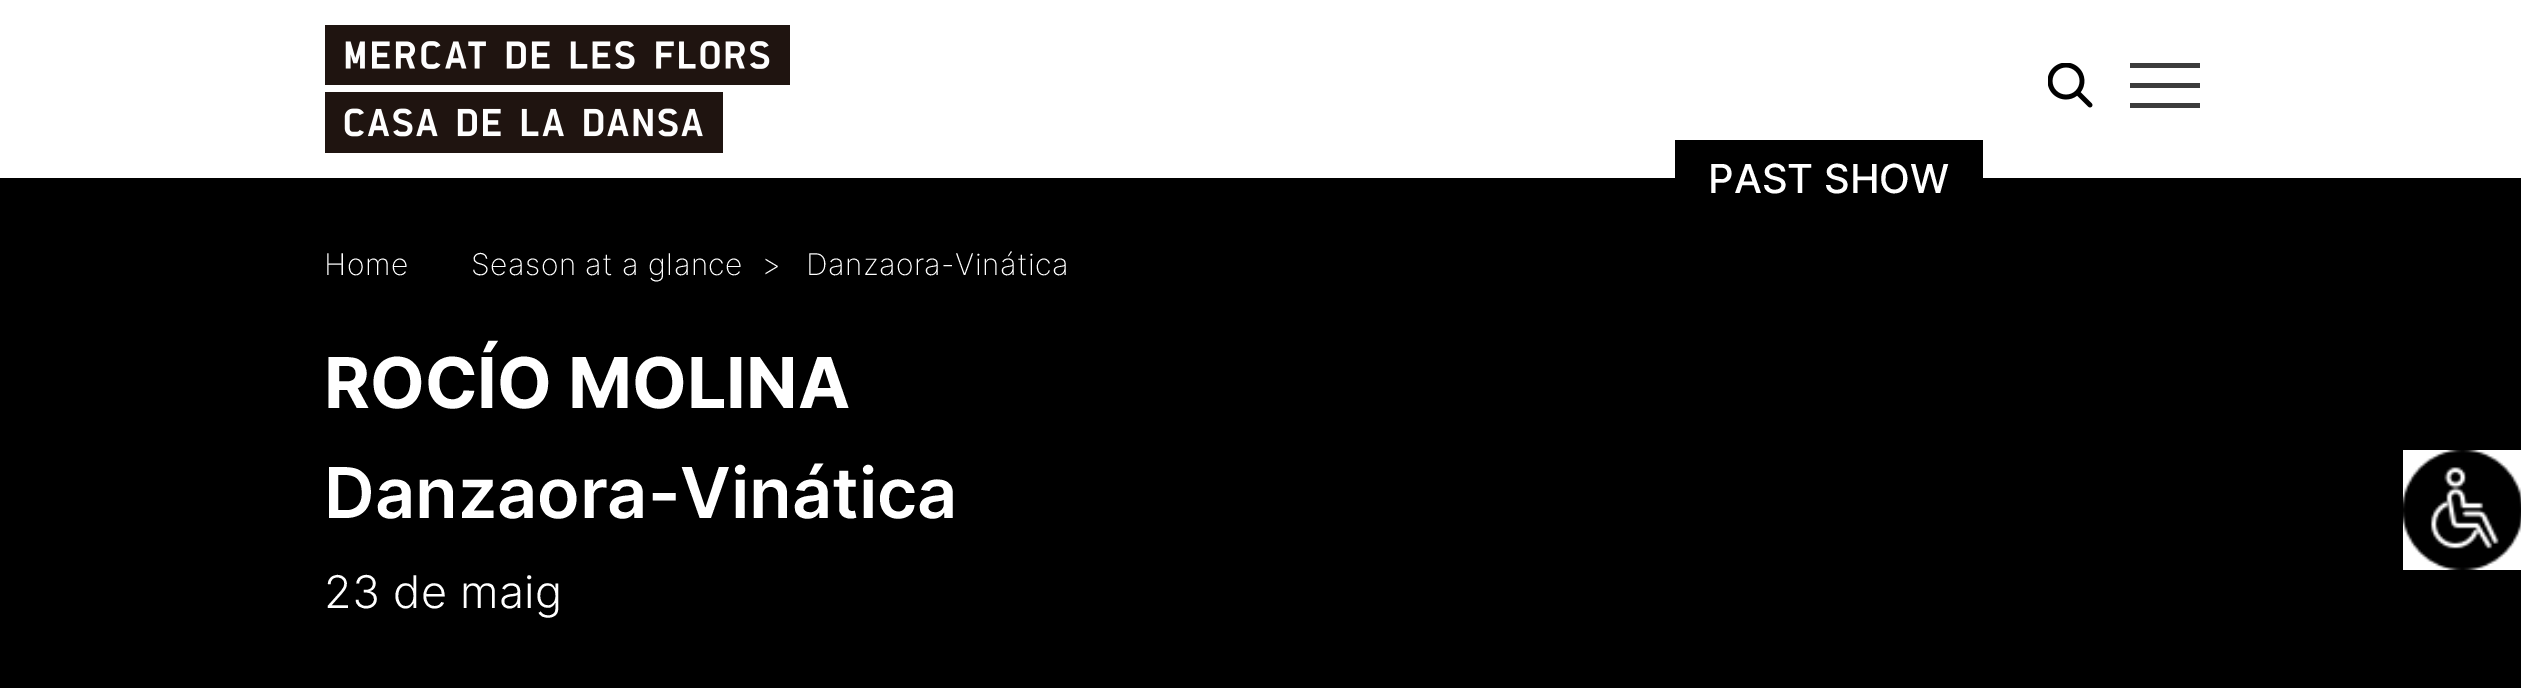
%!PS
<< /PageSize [2521 688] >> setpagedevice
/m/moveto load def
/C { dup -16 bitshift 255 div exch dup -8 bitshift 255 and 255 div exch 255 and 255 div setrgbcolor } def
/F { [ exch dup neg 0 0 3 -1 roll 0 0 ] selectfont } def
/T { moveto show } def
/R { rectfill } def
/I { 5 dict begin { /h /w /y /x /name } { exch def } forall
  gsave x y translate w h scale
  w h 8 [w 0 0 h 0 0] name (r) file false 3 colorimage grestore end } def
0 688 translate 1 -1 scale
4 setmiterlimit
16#FFFFFF C
0 0 2521 688 R
(1.rgb) 325 25 465 128 I
(2.rgb) 2048 63 45 45 I
16#3C3C3C C
2130 63 70 5 R
2130 83 70 5 R
2130 103 70 5 R
16#000000 C
0 178 2521 510 R
1675 140 308 38 R
/Inter-Medium 40 F
16#FFFFFF C
(PAST SHOW) 1708 193 T
/Inter-Bold 70 F
(ROCÍO MOLINA) 324 408 T
/Inter-SemiBold 70 F
(Danzaora-Vinática) 324 518 T
/Inter-Light 45 F
324 608 m .25 0 (23 de maig) ashow
/Inter-ExtraLight 30 F
324 275 m .5 0 (Home) ashow
471 275 m .5 0 (Season at a glance) ashow
(>) 762 275 T
806 275 m .5 0 (Danzaora-Vinática) ashow
2403 450 118 120 R
(3.rgb) 2403 450 118 120 I
showpage
